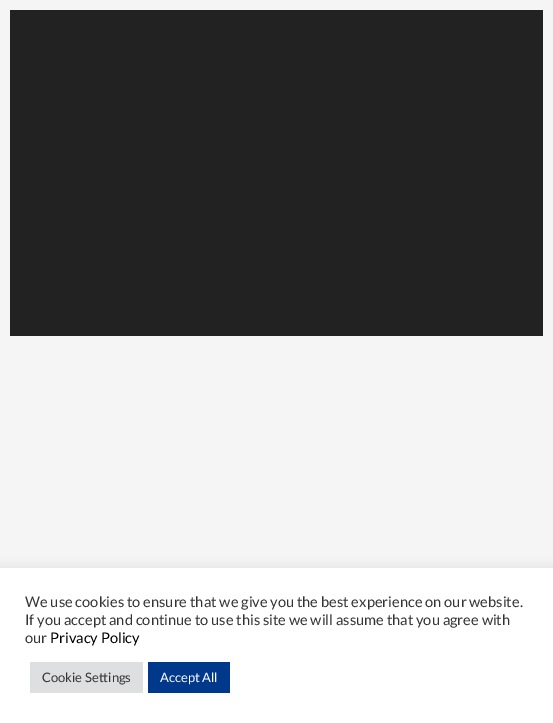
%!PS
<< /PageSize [553 723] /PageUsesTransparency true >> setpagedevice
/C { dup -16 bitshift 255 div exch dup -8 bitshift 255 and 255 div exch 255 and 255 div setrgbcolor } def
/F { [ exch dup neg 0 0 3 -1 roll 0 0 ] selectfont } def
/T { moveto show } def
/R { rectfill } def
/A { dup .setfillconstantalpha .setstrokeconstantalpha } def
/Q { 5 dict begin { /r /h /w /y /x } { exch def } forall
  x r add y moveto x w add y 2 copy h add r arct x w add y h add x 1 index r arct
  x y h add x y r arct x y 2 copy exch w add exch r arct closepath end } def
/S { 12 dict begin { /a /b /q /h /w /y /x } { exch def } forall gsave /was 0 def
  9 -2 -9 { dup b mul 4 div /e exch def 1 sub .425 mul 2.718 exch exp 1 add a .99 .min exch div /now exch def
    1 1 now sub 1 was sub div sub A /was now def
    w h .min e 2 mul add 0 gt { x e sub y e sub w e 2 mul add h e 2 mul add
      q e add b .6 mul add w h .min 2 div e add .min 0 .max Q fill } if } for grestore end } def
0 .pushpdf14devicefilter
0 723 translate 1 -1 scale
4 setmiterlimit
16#F5F5F5 C
0 0 553 723 R
16#222222 C
10 10 533 326 R
16#ACABAB C
0 567 553 155 0 5 .3 S
16#FFFFFF C
0 568 553 155 R
/Lato-Regular 14.65 F
16#333333 C
(We use cookies to ensure that we give you the best experience on our website.) 25 607 T
(If you accept and continue to use this site we will assume that you agree with) 25 625 T
(our) 25 643 T
16#000000 C
(Privacy Policy) 50 643 T
16#DEDFE0 C
30 662 113 31 R
/Lato-Regular 13 F
16#333333 C
(Cookie Settings) 42 682 T
16#00388B C
148 662 82 31 R
16#FFFFFF C
(Accept All) 160 682 T
.poppdf14devicefilter showpage
